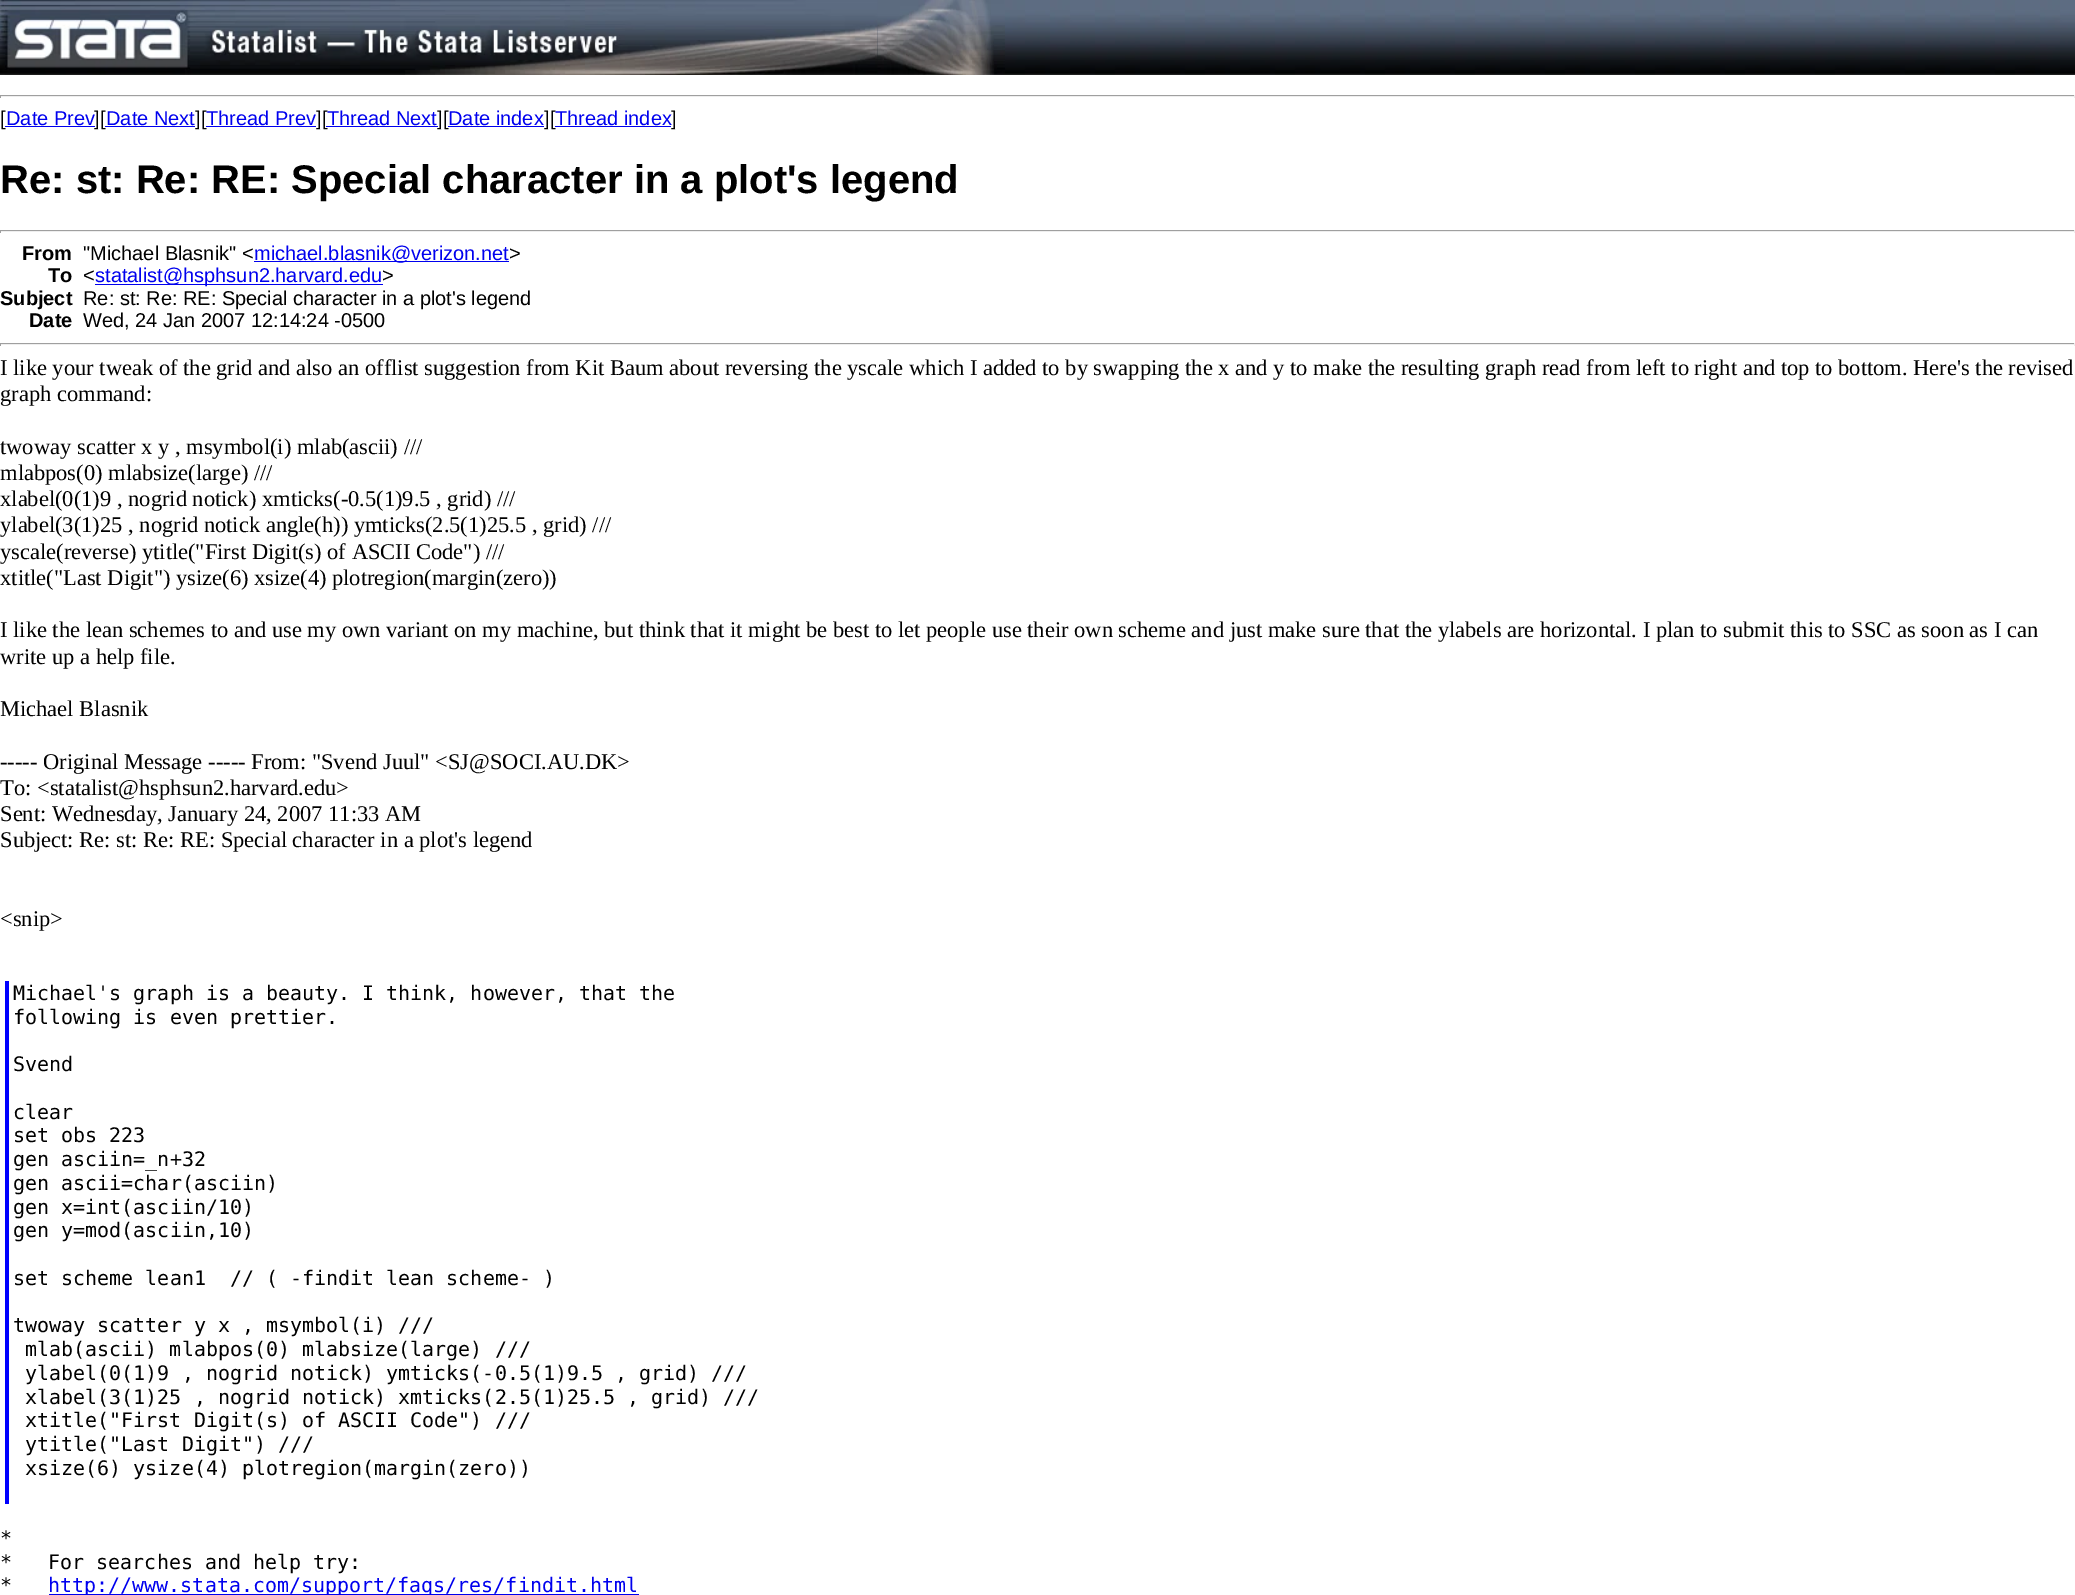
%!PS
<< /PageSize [2075 1595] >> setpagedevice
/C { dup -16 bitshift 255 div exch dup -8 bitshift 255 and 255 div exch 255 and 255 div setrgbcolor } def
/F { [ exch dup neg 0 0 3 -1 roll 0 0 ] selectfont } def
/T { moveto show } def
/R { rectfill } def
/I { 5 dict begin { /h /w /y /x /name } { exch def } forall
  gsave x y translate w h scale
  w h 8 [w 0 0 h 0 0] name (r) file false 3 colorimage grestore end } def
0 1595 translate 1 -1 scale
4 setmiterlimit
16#FFFFFF C
0 0 2075 1595 R
(1.rgb) 877 0 1 75 I
(2.rgb) 0 0 585 75 I
(3.rgb) 585 0 293 75 I
(4.rgb) 877 0 128 75 I
(5.rgb) 1005 0 1070 75 I
16#9F9F9F C
0 95 2075 1 R
16#EEEEEE C
2074 95 1 3 R
0 96 2075 1 R
16#9F9F9F C
0 95 1 3 R
/LiberationSans-Regular 20 F
16#000000 C
([) 0 125 T
16#0000EE C
(Date Prev) 6 125 T
5 126 90 1 R
16#000000 C
(][) 94 125 T
16#0000EE C
(Date Next) 106 125 T
105 126 90 1 R
16#000000 C
(][) 195 125 T
16#0000EE C
(Thread Prev) 206 125 T
206 126 110 1 R
16#000000 C
(][) 316 125 T
16#0000EE C
(Thread Next) 327 125 T
326 126 112 1 R
16#000000 C
(][) 437 125 T
16#0000EE C
(Date index) 448 125 T
448 126 96 1 R
16#000000 C
(][) 544 125 T
16#0000EE C
(Thread index) 555 125 T
555 126 116 1 R
16#000000 C
(]) 671 125 T
/LiberationSans-Bold 40 F
(Re: st: Re: RE: Special character in a plot's legend) 0 193 T
16#9F9F9F C
0 230 2075 1 R
16#EEEEEE C
2074 230 1 3 R
0 231 2075 1 R
16#9F9F9F C
0 230 1 3 R
/LiberationSans-Bold 20 F
16#000000 C
(From) 22 260 T
/LiberationSans-Regular 20 F
("Michael Blasnik" <) 83 260 T
16#0000EE C
254 261 255 1 R
(michael.blasnik@verizon.net) 254 260 T
16#000000 C
(>) 509 260 T
/LiberationSans-Bold 20 F
(To) 48 282 T
/LiberationSans-Regular 20 F
(<) 83 282 T
16#0000EE C
95 284 288 1 R
(statalist@hsphsun2.harvard.edu) 95 282 T
16#000000 C
(>) 382 282 T
/LiberationSans-Bold 20 F
(Subject) 0 305 T
/LiberationSans-Regular 20 F
(Re: st: Re: RE: Special character in a plot's legend) 83 305 T
/LiberationSans-Bold 20 F
(Date) 29 327 T
/LiberationSans-Regular 20 F
(Wed, 24 Jan 2007 12:14:24 -0500) 83 327 T
16#9F9F9F C
0 343 2075 1 R
16#EEEEEE C
2074 343 1 3 R
0 344 2075 1 R
16#9F9F9F C
0 343 1 3 R
/LiberationSerif-Regular 22.5 F
16#000000 C
(I like your tweak of the grid and also an offlist suggestion from Kit Baum about reversing the yscale which I added to by swapping the x and y to make the resulting graph read from left to right and top to bottom. Here's the revised) 0 375 T
(graph command:) 0 401 T
(twoway scatter x y , msymbol\(i\) mlab\(ascii\) ///) 0 454 T
(mlabpos\(0\) mlabsize\(large\) ///) 0 480 T
(xlabel\(0\(1\)9 , nogrid notick\) xmticks\(-0.5\(1\)9.5 , grid\) ///) 0 506 T
(ylabel\(3\(1\)25 , nogrid notick angle\(h\)\) ymticks\(2.5\(1\)25.5 , grid\) ///) 0 532 T
(yscale\(reverse\) ytitle\("First Digit\(s\) of ASCII Code"\) ///) 0 559 T
(xtitle\("Last Digit"\) ysize\(6\) xsize\(4\) plotregion\(margin\(zero\)\)) 0 585 T
(I like the lean schemes to and use my own variant on my machine, but think that it might be best to let people use their own scheme and just make sure that the ylabels are horizontal. I plan to submit this to SSC as soon as I can) 0 637 T
(write up a help file.) 0 664 T
(Michael Blasnik) 0 716 T
(----- Original Message ----- From: "Svend Juul" <SJ@SOCI.AU.DK>) 0 769 T
(To: <statalist@hsphsun2.harvard.edu>) 0 795 T
(Sent: Wednesday, January 24, 2007 11:33 AM) 0 821 T
(Subject: Re: st: Re: RE: Special character in a plot's legend) 0 847 T
(<snip>) 0 926 T
16#0000FF C
5 981 4 523 R
/DejaVuSansMono-Regular 20 F
16#000000 C
(Michael's graph is a beauty. I think, however, that the) 13 1000 T
(following is even prettier.) 13 1024 T
(Svend) 13 1071 T
(clear) 13 1119 T
(set obs 223) 13 1142 T
(gen asciin=_n+32) 13 1166 T
(gen ascii=char\(asciin\)) 13 1190 T
(gen x=int\(asciin/10\)) 13 1214 T
(gen y=mod\(asciin,10\)) 13 1237 T
(set scheme lean1  // \( -findit lean scheme- \)) 13 1285 T
(twoway scatter y x , msymbol\(i\) ///) 13 1332 T
(mlab\(ascii\) mlabpos\(0\) mlabsize\(large\) ///) 25 1356 T
(ylabel\(0\(1\)9 , nogrid notick\) ymticks\(-0.5\(1\)9.5 , grid\) ///) 25 1380 T
(xlabel\(3\(1\)25 , nogrid notick\) xmticks\(2.5\(1\)25.5 , grid\) ///) 25 1404 T
(xtitle\("First Digit\(s\) of ASCII Code"\) ///) 25 1427 T
(ytitle\("Last Digit"\) ///) 25 1451 T
(xsize\(6\) ysize\(4\) plotregion\(margin\(zero\)\)) 25 1475 T
(*) 0 1545 T
(*   For searches and help try:) 0 1569 T
(*) 0 1592 T
16#0000EE C
49 1594 590 1 R
(http://www.stata.com/support/faqs/res/findit.html) 48 1592 T
showpage
